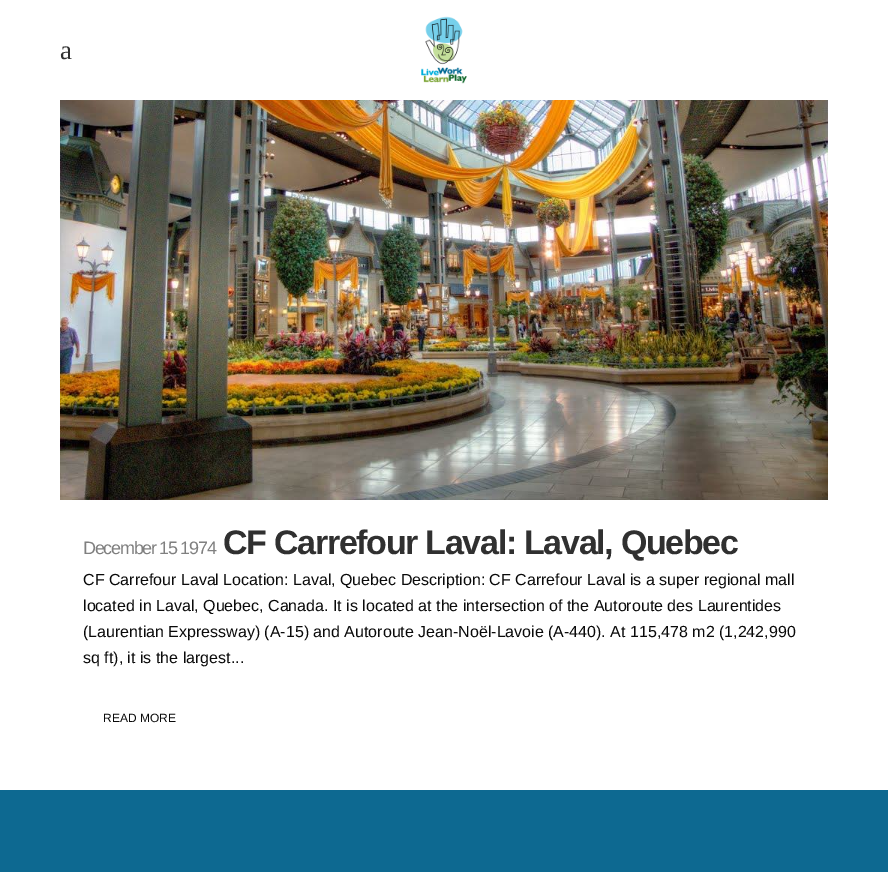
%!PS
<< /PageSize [888 872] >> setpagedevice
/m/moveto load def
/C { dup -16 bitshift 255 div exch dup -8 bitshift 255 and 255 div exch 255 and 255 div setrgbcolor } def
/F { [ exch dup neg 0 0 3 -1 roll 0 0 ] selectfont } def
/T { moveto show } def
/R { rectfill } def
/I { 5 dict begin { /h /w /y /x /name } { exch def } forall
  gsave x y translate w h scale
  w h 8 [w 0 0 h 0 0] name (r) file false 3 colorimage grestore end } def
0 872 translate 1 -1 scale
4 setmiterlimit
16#FFFFFF C
0 0 888 872 R
/LiberationSerif-Regular 27 F
16#303030 C
(a) 60 59 T
(1.rgb) 421 16 46 68 I
(2.rgb) 60 100 768 400 I
/LiberationSans-Regular 18 F
16#808080 C
83 554 m -1.3 0 (December 15 1974) ashow
/LiberationSans-Bold 34 F
16#303030 C
223 554 m -1.3 0 (CF Carrefour Laval: Laval, Quebec) ashow
/LiberationSans-Regular 16 F
16#0A0A0A C
(CF Carrefour Laval Location: Laval, Quebec Description: CF Carrefour Laval is a super regional mall) 83 585 T
(located in Laval, Quebec, Canada. It is located at the intersection of the Autoroute des Laurentides) 83 611 T
(\(Laurentian Expressway\) \(A-15\) and Autoroute Jean-Noël-Lavoie \(A-440\). At 115,478 m2 \(1,242,990) 83 637 T
(sq ft\), it is the largest...) 83 663 T
/LiberationSans-Regular 12 F
(READ MORE) 103 722 T
16#0D6991 C
0 790 888 82 R
showpage
